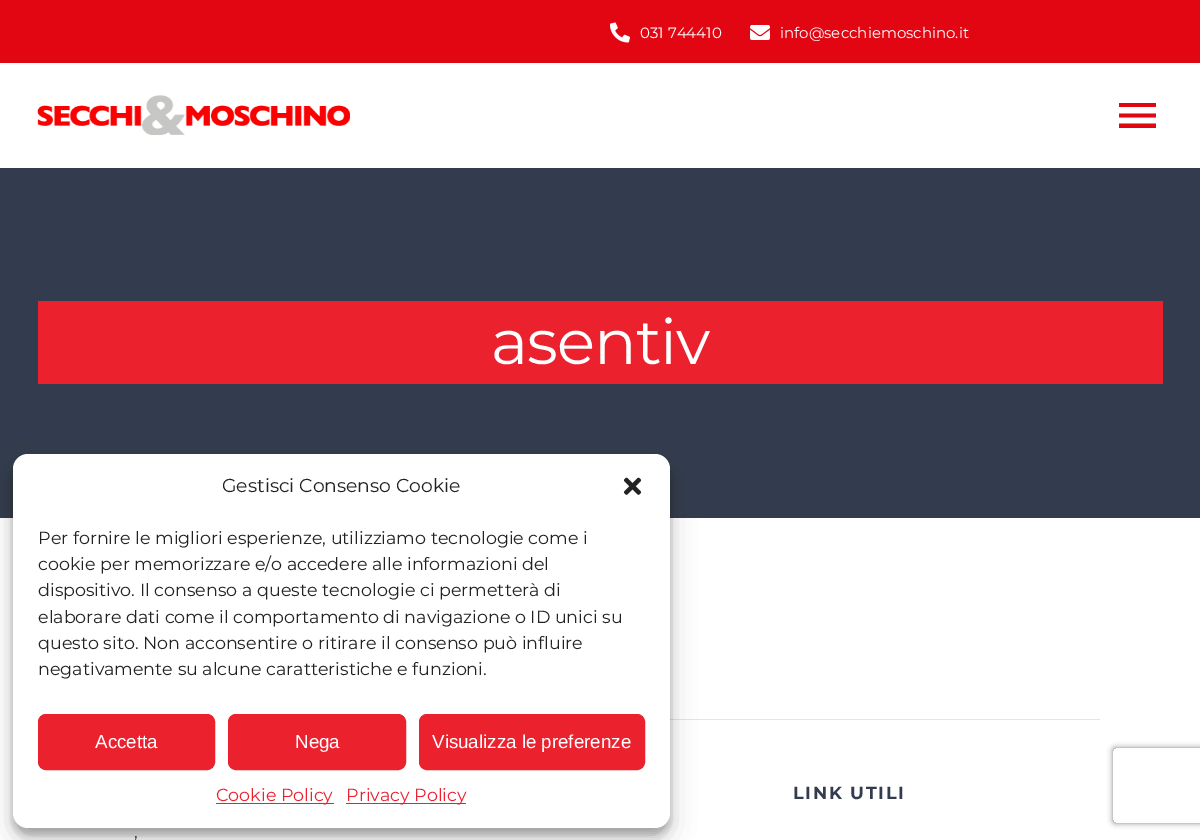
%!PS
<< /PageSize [1200 840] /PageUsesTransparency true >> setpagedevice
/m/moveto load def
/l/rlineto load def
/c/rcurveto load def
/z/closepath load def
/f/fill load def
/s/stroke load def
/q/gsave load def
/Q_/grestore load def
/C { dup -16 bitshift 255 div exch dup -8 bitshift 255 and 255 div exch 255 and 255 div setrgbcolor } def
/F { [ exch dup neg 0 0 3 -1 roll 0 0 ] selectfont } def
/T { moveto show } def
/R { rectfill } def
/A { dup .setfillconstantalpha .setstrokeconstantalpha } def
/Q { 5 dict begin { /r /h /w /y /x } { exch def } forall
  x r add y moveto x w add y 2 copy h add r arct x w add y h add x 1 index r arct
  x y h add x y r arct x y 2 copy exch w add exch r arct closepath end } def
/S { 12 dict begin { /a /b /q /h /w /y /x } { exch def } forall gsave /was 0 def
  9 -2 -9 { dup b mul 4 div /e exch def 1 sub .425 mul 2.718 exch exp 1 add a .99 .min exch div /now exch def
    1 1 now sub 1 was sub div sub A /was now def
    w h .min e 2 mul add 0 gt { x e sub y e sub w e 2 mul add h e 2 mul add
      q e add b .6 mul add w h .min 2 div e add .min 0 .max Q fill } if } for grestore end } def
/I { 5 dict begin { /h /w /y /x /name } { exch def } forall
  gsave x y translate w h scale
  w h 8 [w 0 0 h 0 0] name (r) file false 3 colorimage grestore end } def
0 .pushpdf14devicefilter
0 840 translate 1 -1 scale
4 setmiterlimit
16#FFFFFF C
0 0 1200 840 R
16#E20613 C
0 0 1200 63 R
(1.rgb) 610 22 20 21 I
/Montserrat-Regular 15 F
16#FFFFFF C
(031 744410) 640 38 T
(2.rgb) 750 25 20 15 I
(info@secchiemoschino.it) 780 38 T
16#333C4E C
0 168 1200 350 R
16#212121 C
0 65 1200 105 0 3 .1 S
16#FFFFFF C
0 63 1200 105 R
(3.rgb) 37 95 313 40 I
16#E20613 C
1119 103 m 37 0 l 0 4 l -37 0 l z 1119 117.5 m 0 -4 l 37 0 l 0 4 l z 1119 128 m 0 -4.5 l 37 0 l 0 4.5 l z f
16#EB212E C
38 301 1125 83 R
/Montserrat-Regular 63 F
16#FFFFFF C
491 364 m -1 0 (asentiv) ashow
16#E7E4E2 C
670 719 430 1 R
/Montserrat-Bold 17.5 F
16#333C4E C
793 799 m 1.75 0 (LINK UTILI) ashow
/Montserrat-Regular 17.5 F
(’) 134 849 T
16#000000 C
13 461 657 374 15 4 .23 S
13 466 657 374 15 12.5 .19 S
16#FFFFFF C
13 454 657 374 15 Q f
/Montserrat-Regular 18.75 F
16#222222 C
(Gestisci Consenso Cookie) 222 492 T
(4.rgb) 623 477 19 18 I
/Montserrat-Regular 17.5 F
(Per fornire le migliori esperienze, utilizziamo tecnologie come i) 38 544 T
(cookie per memorizzare e/o accedere alle informazioni del) 38 570 T
(dispositivo. Il consenso a queste tecnologie ci permetterà di) 38 596 T
(elaborare dati come il comportamento di navigazione o ID unici su) 38 623 T
(questo sito. Non acconsentire o ritirare il consenso può influire) 38 649 T
(negativamente su alcune caratteristiche e funzioni.) 38 675 T
16#EB212E C
38.5 714.5 176 55 7.5 Q q f Q_
s
/LiberationSans-Regular 18.75 F
16#FFFFFF C
(Accetta) 95 748 T
16#EB212E C
228.5 714.5 177 55 7.5 Q q f Q_
s
16#FFFFFF C
(Nega) 295 748 T
16#EB212E C
419.5 714.5 225 55 7.5 Q q f Q_
s
16#FFFFFF C
(Visualizza le preferenze) 432 748 T
16#EB212E C
216 803 118 1 R
/Montserrat-Regular 17.5 F
(Cookie Policy) 216 801 T
346 803 120 1 R
(Privacy Policy) 346 801 T
q
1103 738 m 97 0 l 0 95 l -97 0 l z 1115.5 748 m 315 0 l 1.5 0 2.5 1 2.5 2.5 c 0 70 l 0 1.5 -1 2.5 -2.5 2.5 c -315 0 l -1.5 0 -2.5 -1 -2.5 -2.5 c 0 -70 l 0 -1.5 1 -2.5 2.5 -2.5 c z eoclip newpath
16#808080 C
1113 748 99 75 2.5 3 1 S
Q_
.poppdf14devicefilter showpage
